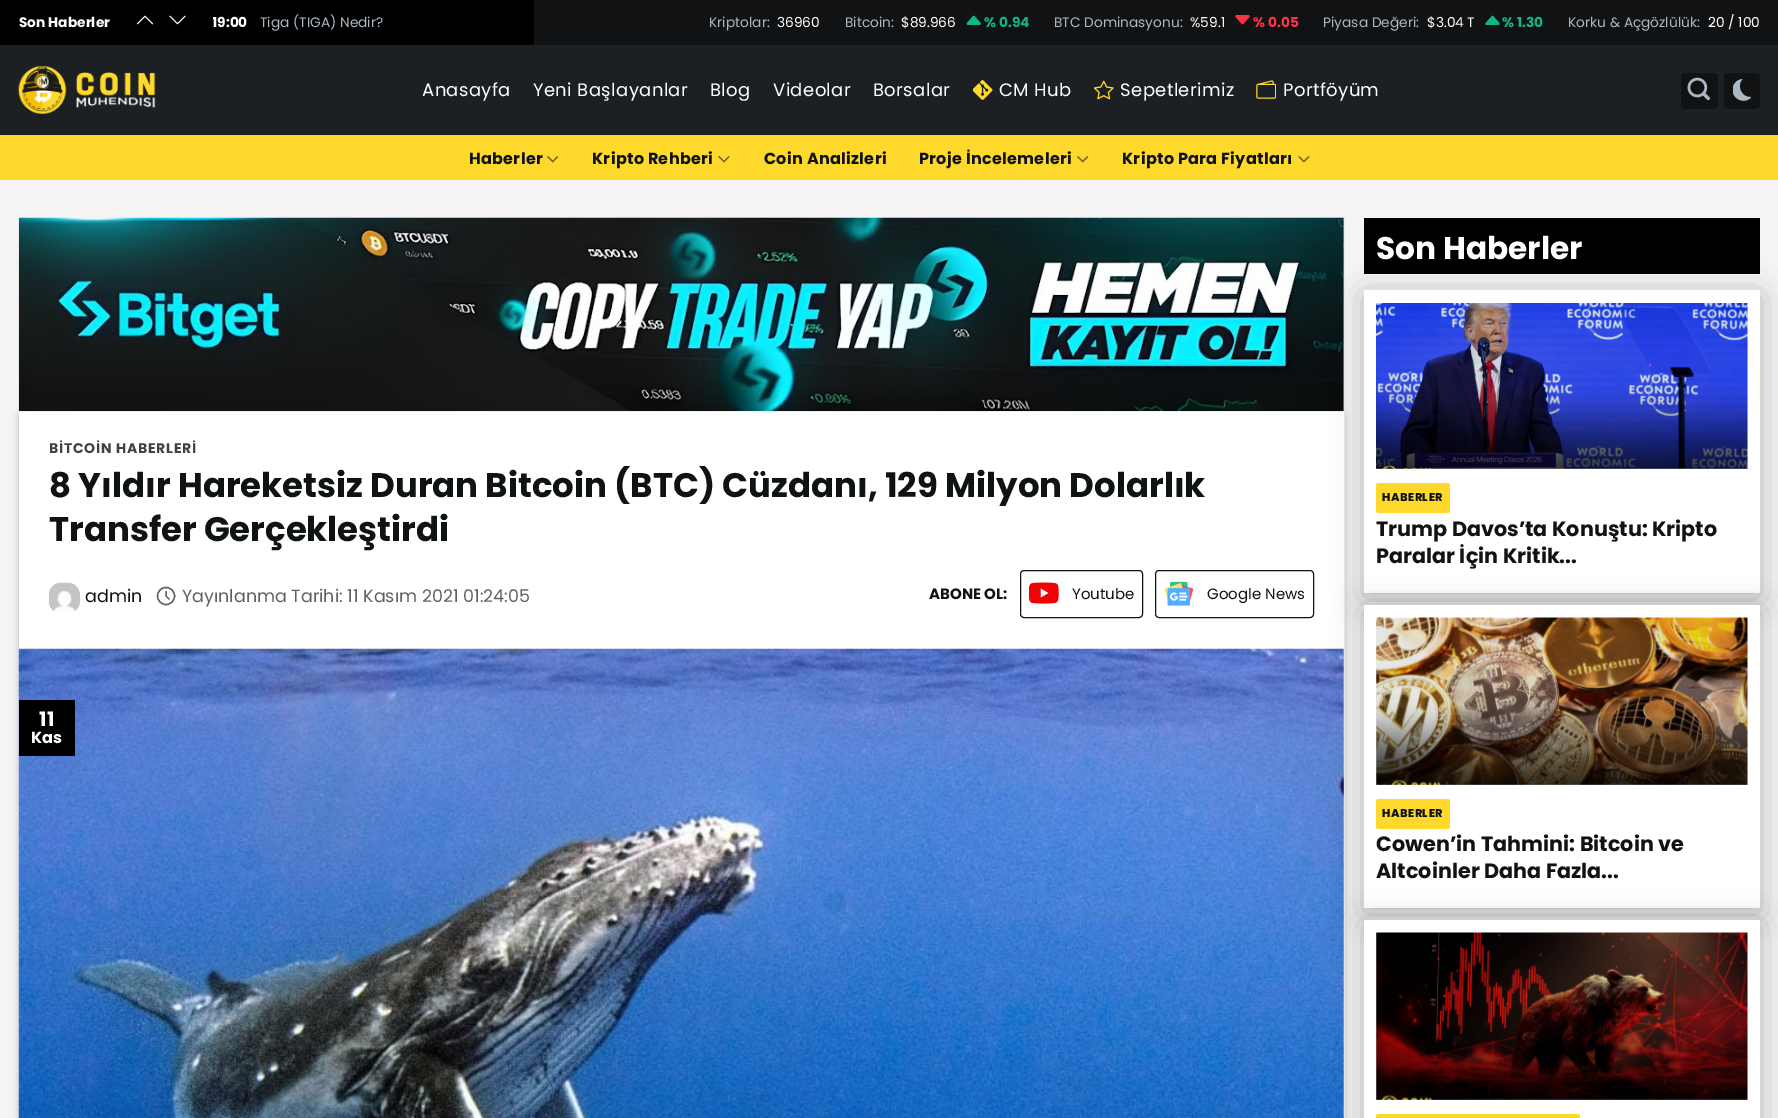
%!PS
<< /PageSize [1778 1118] /PageUsesTransparency true >> setpagedevice
/m/moveto load def
/l/rlineto load def
/c/rcurveto load def
/z/closepath load def
/f/fill load def
/s/stroke load def
/q/gsave load def
/Q_/grestore load def
/w/setlinewidth load def
/C { dup -16 bitshift 255 div exch dup -8 bitshift 255 and 255 div exch 255 and 255 div setrgbcolor } def
/F { [ exch dup neg 0 0 3 -1 roll 0 0 ] selectfont } def
/T { moveto show } def
/R { rectfill } def
/A { dup .setfillconstantalpha .setstrokeconstantalpha } def
/O { newpath 0 360 arc closepath } def
/Q { 5 dict begin { /r /h /w /y /x } { exch def } forall
  x r add y moveto x w add y 2 copy h add r arct x w add y h add x 1 index r arct
  x y h add x y r arct x y 2 copy exch w add exch r arct closepath end } def
/S { 12 dict begin { /a /b /q /h /w /y /x } { exch def } forall gsave /was 0 def
  9 -2 -9 { dup b mul 4 div /e exch def 1 sub .425 mul 2.718 exch exp 1 add a .99 .min exch div /now exch def
    1 1 now sub 1 was sub div sub A /was now def
    w h .min e 2 mul add 0 gt { x e sub y e sub w e 2 mul add h e 2 mul add
      q e add b .6 mul add w h .min 2 div e add .min 0 .max Q fill } if } for grestore end } def
/I { 5 dict begin { /h /w /y /x /name } { exch def } forall
  gsave x y translate w h scale
  w h 8 [w 0 0 h 0 0] name (r) file false 3 colorimage grestore end } def
0 .pushpdf14devicefilter
0 1118 translate 1 -1 scale
4 setmiterlimit
16#F5F3F4 C
0 0 1778 1118 R
16#000000 C
0 0 534 45 R
/Poppins-Bold 13.75 F
16#FFFFFF C
(Son Haberler) 19 27 T
(1.rgb) 136 15 18 10 I
(2.rgb) 169 15 17 10 I
q
213 6 321 33 rectclip
(19:00) 212 27 T
Q_
/Poppins-Regular 13.75 F
16#ABB8C3 C
(Tiga \(TIGA\) Nedir?) 260 27 T
16#101213 C
534 0 1244 45 R
16#ABB8C3 C
(Kriptolar:) 709 27 T
16#FFFFFF C
(36960) 777 27 T
16#ABB8C3 C
(Bitcoin:) 845 27 T
16#FFFFFF C
($89.966) 901 27 T
(3.rgb) 966 15 15 10 I
/Poppins-Bold 13.75 F
16#11B682 C
(% 0.94) 984 27 T
/Poppins-Regular 13.75 F
16#ABB8C3 C
(BTC Dominasyonu:) 1054 27 T
16#FFFFFF C
(%59.1) 1190 27 T
(4.rgb) 1235 15 15 10 I
/Poppins-Bold 13.75 F
16#F83548 C
(% 0.05) 1253 27 T
/Poppins-Regular 13.75 F
16#ABB8C3 C
(Piyasa Değeri:) 1323 27 T
16#FFFFFF C
($3.04 T) 1427 27 T
(5.rgb) 1485 15 15 10 I
/Poppins-Bold 13.75 F
16#11B682 C
(% 1.30) 1502 27 T
/Poppins-Regular 13.75 F
16#ABB8C3 C
(Korku & Açgözlülük:) 1568 27 T
16#FFFFFF C
(20 / 100) 1708 27 T
16#1C2022 C
0 45 1778 90 R
(6.rgb) 18 66 138 48 I
/Poppins-Regular 18 F
16#FFFFFF C
422 96 m .4 0 (Anasayfa) ashow
533 96 m .4 0 (Yeni Başlayanlar) ashow
710 96 m .4 0 (Blog) ashow
773 96 m .4 0 (Videolar) ashow
873 96 m .4 0 (Borsalar) ashow
(7.rgb) 973 80 20 20 I
999 96 m .4 0 (CM Hub) ashow
(8.rgb) 1094 80 20 20 I
1120 96 m .4 0 (Sepetlerimiz) ashow
(9.rgb) 1256 80 20 19 I
1283 96 m .4 0 (Portföyüm) ashow
16#101213 C
1681 73 37 36 4 Q f
(10.rgb) 1687 77 23 24 I
1724 73 36 36 4 Q f
q
1733 79 18 22 rectclip
16#ABB8C3 C
1750.5 97 m -9.5 0 -14 -11 -8 -18 c -3 .5 -5.5 1.5 -7 3.5 c -10 11 6.5 25 16 14.5 c z f
Q_
16#FED82B C
0 135 1778 45 R
/Poppins-Bold 16 F
16#101314 C
469 164 m .3 0 (Haberler) ashow
(11.rgb) 547 156 12 7 I
592 164 m .3 0 (Kripto Rehberi) ashow
(12.rgb) 718 156 12 7 I
764 164 m .3 0 (Coin Analizleri) ashow
919 164 m .3 0 (Proje İncelemeleri) ashow
(11.rgb) 1077 156 12 7 I
1122 164 m .3 0 (Kripto Para Fiyatları) ashow
(12.rgb) 1298 156 12 7 I
16#000000 C
19 415 1325 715 0 4 .23 S
16#FFFFFF C
19 411 1325 707 R
(13.rgb) 18 217 1326 195 I
(14.rgb) 1343 217 1 194 I
/Poppins-Bold 14 F
16#404243 C
49 453 m .75 0 (BİTCOİN HABERLERİ) ashow
/Poppins-Bold 34 F
16#101314 C
(8 Yıldır Hareketsiz Duran Bitcoin \(BTC\) Cüzdanı, 129 Milyon Dolarlık) 49 497 T
(Transfer Gerçekleştirdi) 49 541 T
(15.rgb) 48 582 32 30 I
/Poppins-Regular 17.5 F
(admin) 85 602 T
16#616161 C
1.4 w
166 596 8.5 O s
(Yayınlanma Tarihi: 11 Kasım 2021 01:24:05) 182 602 T
1 setlinecap
1 setlinejoin
166 591.5 m 0 4.5 l 3 3 l s
/Poppins-Bold 15 F
16#101314 C
(ABONE OL:) 929 599 T
1 w
0 setlinecap
0 setlinejoin
1020.5 570.5 122 47 3.5 Q s
(16.rgb) 1029 582 30 22 I
/Poppins-Regular 15 F
(Youtube) 1072 599 T
1155.5 570.5 158 47 3.5 Q s
(17.rgb) 1164 581 30 25 I
(Google News) 1207 599 T
(18.rgb) 18 648 1326 470 I
16#000000 C
19 700 56 56 R
/Poppins-Bold 20 F
16#FFFFFF C
(11) 39 726 T
/Poppins-Bold 16 F
(Kas) 31 743 T
16#ECECEC C
1344 218 1 900 R
16#000000 C
1364 218 396 56 R
/Poppins-Bold 31.25 F
16#FFFFFF C
(Son Haberler) 1376 259 T
16#000000 C
1364 295 396 303 0 15.5 .25 S
16#FFFFFF C
1364 290 396 303 R
16#E8E8E8 C
1376 303 372 166 R
(19.rgb) 1376 303 372 166 I
16#FED82B C
1376 483 74 30 2.5 Q f
/Poppins-ExtraBold 11.25 F
16#101314 C
1382 501 m .5 0 (HABERLER) ashow
/Poppins-Bold 20.75 F
(Trump Davos’ta Konuştu: Kripto) 1376 536 T
(Paralar İçin Kritik...) 1376 563 T
16#000000 C
1364 610 396 303 0 15.5 .25 S
16#FFFFFF C
1364 605 396 303 R
(20.rgb) 1376 617 372 168 I
0.09 A
16#000000 C
1376 618 372 167 R
1 A
16#FED82B C
1376 799 74 30 2.5 Q f
/Poppins-ExtraBold 11.25 F
16#101314 C
1382 817 m .5 0 (HABERLER) ashow
/Poppins-Bold 20.75 F
(Cowen’in Tahmini: Bitcoin ve) 1376 851 T
(Altcoinler Daha Fazla...) 1376 878 T
16#000000 C
1364 925 396 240 0 15.5 .25 S
16#FFFFFF C
1364 920 396 198 R
(21.rgb) 1376 932 372 168 I
0.09 A
16#000000 C
1376 933 372 167 R
1 A
16#FED82B C
1376 1114 204 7 2.5 Q f
.poppdf14devicefilter showpage
